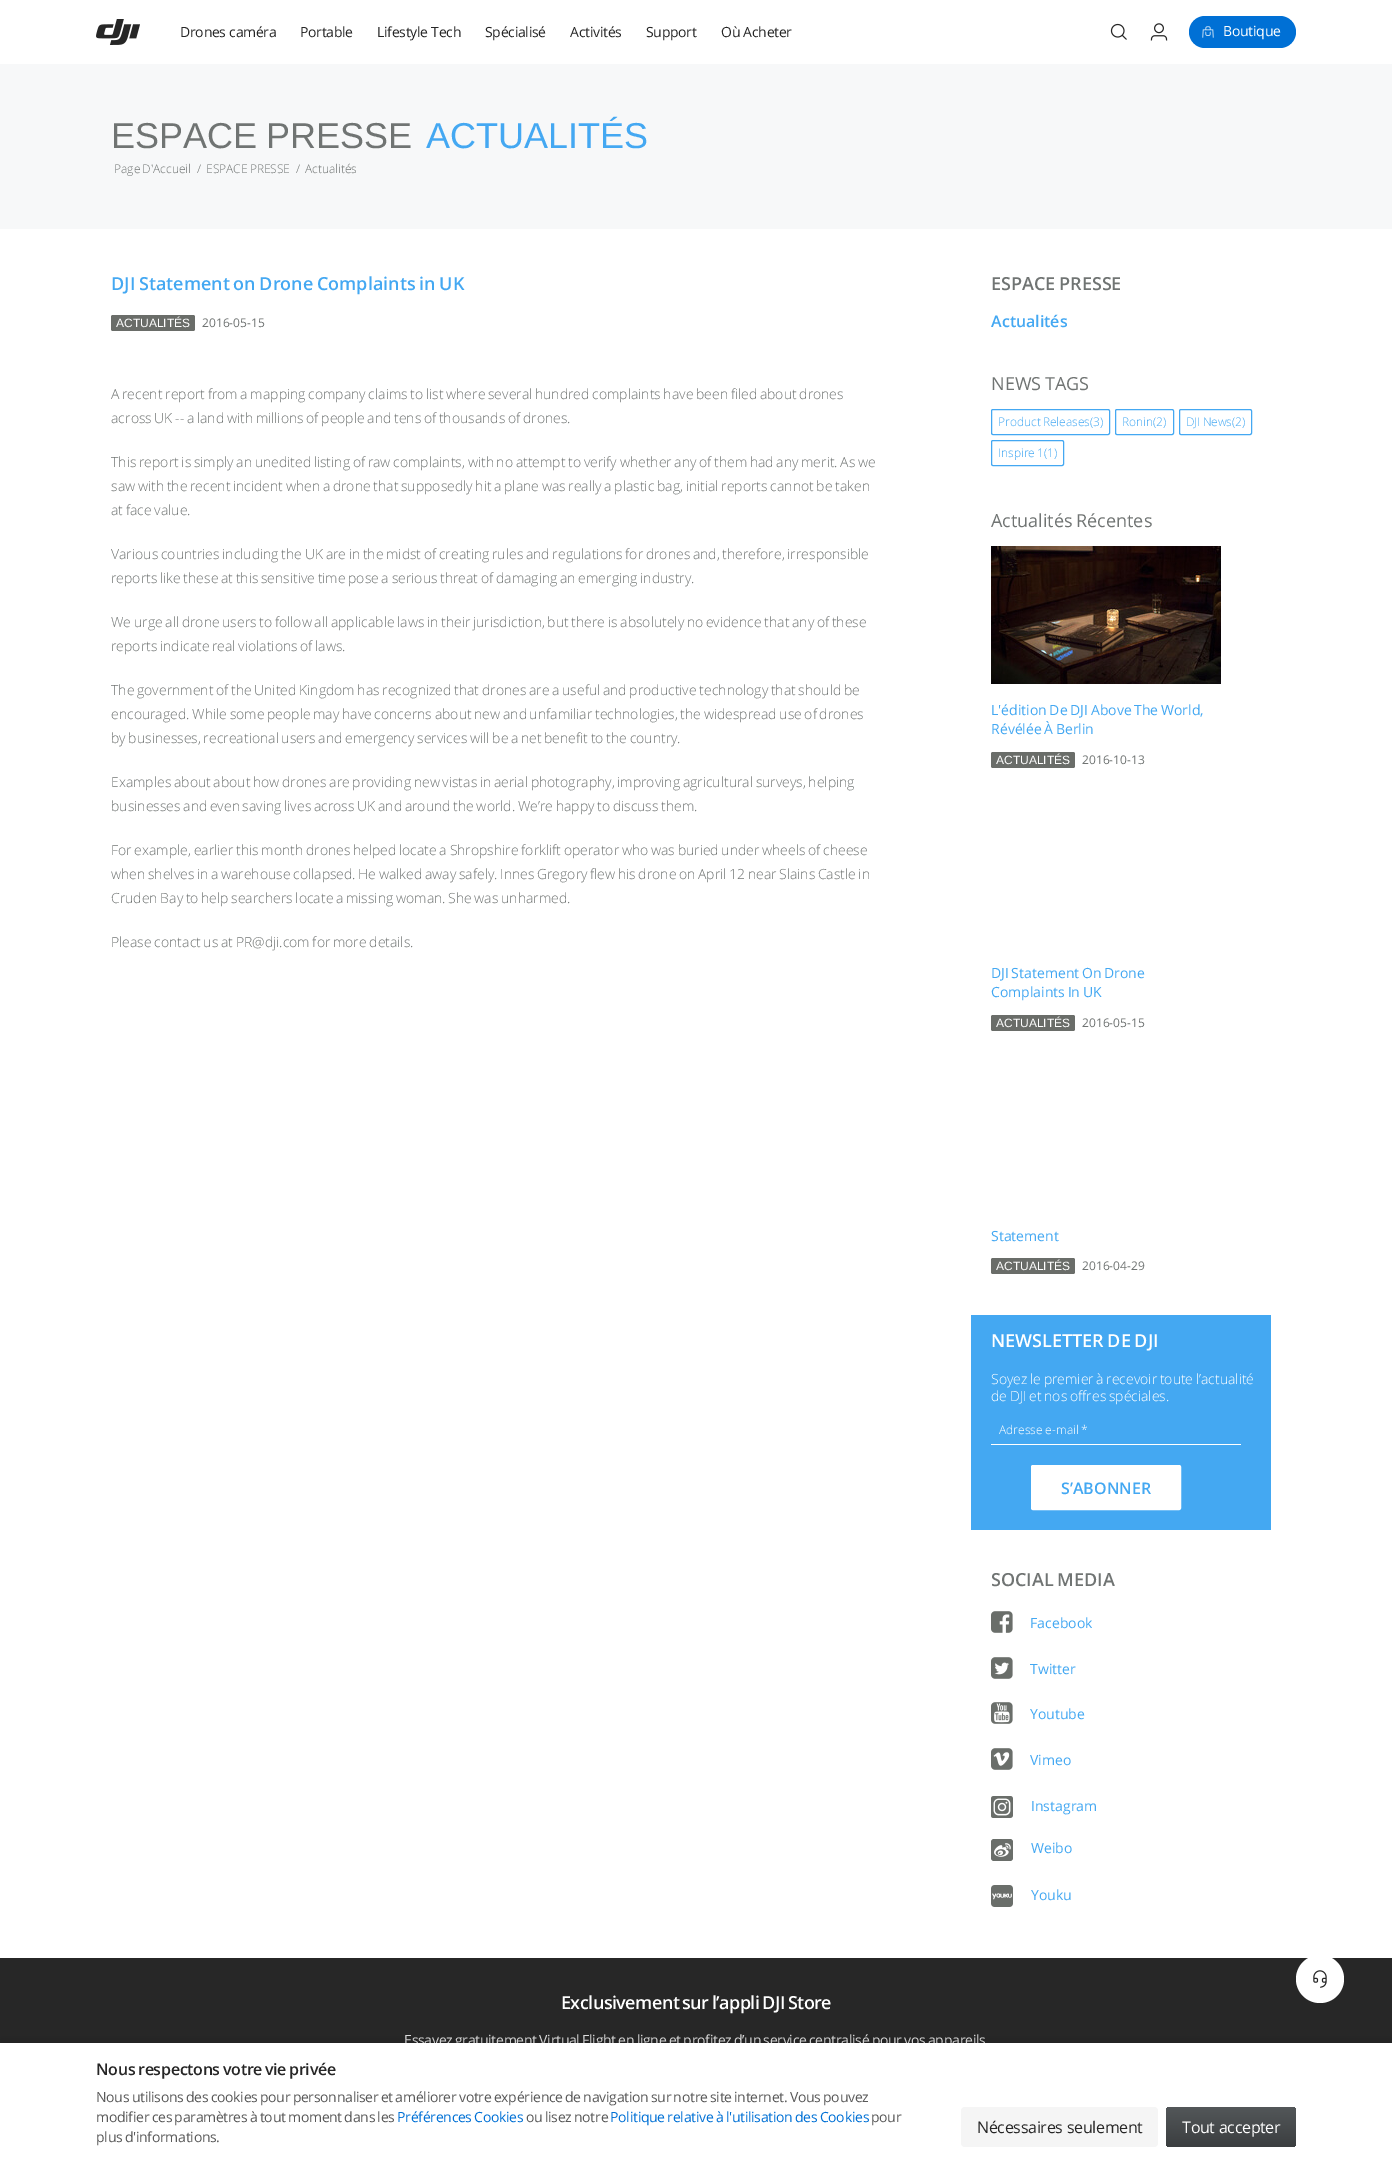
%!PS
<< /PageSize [1392 2163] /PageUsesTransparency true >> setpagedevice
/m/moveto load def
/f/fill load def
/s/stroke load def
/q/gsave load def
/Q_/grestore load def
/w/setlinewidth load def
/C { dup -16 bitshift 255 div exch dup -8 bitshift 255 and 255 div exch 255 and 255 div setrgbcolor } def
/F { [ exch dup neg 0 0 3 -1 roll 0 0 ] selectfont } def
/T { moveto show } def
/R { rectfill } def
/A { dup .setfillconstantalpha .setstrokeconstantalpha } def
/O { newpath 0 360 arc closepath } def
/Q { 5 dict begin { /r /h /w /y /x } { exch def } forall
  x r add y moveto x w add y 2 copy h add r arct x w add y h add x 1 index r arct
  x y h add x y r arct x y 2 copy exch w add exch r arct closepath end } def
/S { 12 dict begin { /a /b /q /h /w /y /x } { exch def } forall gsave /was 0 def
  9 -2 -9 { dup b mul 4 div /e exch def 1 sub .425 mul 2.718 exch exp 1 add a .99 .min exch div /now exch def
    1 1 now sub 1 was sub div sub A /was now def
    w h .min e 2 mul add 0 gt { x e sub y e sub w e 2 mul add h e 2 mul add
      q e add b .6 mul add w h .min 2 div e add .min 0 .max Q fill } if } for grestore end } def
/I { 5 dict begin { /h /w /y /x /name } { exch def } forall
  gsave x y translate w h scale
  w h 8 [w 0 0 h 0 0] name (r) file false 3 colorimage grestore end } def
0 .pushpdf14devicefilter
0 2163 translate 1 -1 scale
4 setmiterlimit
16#FFFFFF C
0 0 1392 2163 R
(1.rgb) 96 19 44 26 I
/OpenSans-Regular 14 F
16#262626 C
180 37 m -.28 0 (Drones caméra) ashow
300 37 m -.28 0 (Portable) ashow
377 37 m -.28 0 (Lifestyle Tech) ashow
485 37 m -.28 0 (Spécialisé) ashow
570 37 m -.28 0 (Activités) ashow
646 37 m -.28 0 (Support) ashow
721 37 m -.28 0 (Où Acheter) ashow
(2.rgb) 1110 23 17 17 I
(3.rgb) 1150 23 18 18 I
16#0070D5 C
1189 16 107 32 16 Q f
(4.rgb) 1202 26 12 12 I
16#FFFFFF C
1223 36 m -.28 0 (Boutique) ashow
16#F7F8F9 C
0 64 1392 165 R
/LiberationSans-Regular 36 F
16#707473 C
111 148 m -1 0 32 (ESPACE PRESSE) widthshow
16#44A8F2 C
(ACTUALITÉS) 426 148 T
/OpenSans-Light 12 F
16#707473 C
114 173 m -1 0 32 (Page D'Accueil) widthshow
(/) 197 173 T
206 173 m -1 0 32 (ESPACE PRESSE) widthshow
(/) 296 173 T
(Actualités) 305 173 T
/OpenSans-SemiBold 18 F
16#44A8F2 C
111 290 m -1 0 32 (DJI Statement on Drone Complaints in UK) widthshow
16#6A6D69 C
111 315 84 16 2 Q f
/LiberationSans-Regular 12 F
16#FFFFFF C
(ACTUALITÉS) 116 327 T
/OpenSans-Regular 12 F
16#707473 C
(2016-05-15) 202 327 T
/OpenSans-Light 14 F
111 399 m -1 0 32 (A recent report from a mapping company claims to list where several hundred complaints have been filed about drones) widthshow
111 423 m -1 0 32 (across UK -- a land with millions of people and tens of thousands of drones.) widthshow
111 467 m -1 0 32 (This report is simply an unedited listing of raw complaints, with no attempt to verify whether any of them had any merit. As we) widthshow
111 491 m -1 0 32 (saw with the recent incident when a drone that supposedly hit a plane was really a plastic bag, initial reports cannot be taken) widthshow
111 515 m -1 0 32 (at face value.) widthshow
111 559 m -1 0 32 (Various countries including the UK are in the midst of creating rules and regulations for drones and, therefore, irresponsible) widthshow
111 583 m -1 0 32 (reports like these at this sensitive time pose a serious threat of damaging an emerging industry.) widthshow
111 627 m -1 0 32 (We urge all drone users to follow all applicable laws in their jurisdiction, but there is absolutely no evidence that any of these) widthshow
111 651 m -1 0 32 (reports indicate real violations of laws.) widthshow
111 695 m -1 0 32 (The government of the United Kingdom has recognized that drones are a useful and productive technology that should be) widthshow
111 719 m -1 0 32 (encouraged. While some people may have concerns about new and unfamiliar technologies, the widespread use of drones) widthshow
111 743 m -1 0 32 (by businesses, recreational users and emergency services will be a net benefit to the country.) widthshow
111 787 m -1 0 32 (Examples about about how drones are providing new vistas in aerial photography, improving agricultural surveys, helping) widthshow
111 811 m -1 0 32 (businesses and even saving lives across UK and around the world. We’re happy to discuss them.) widthshow
111 855 m -1 0 32 (For example, earlier this month drones helped locate a Shropshire forklift operator who was buried under wheels of cheese) widthshow
111 879 m -1.05 0 32 (when shelves in a warehouse collapsed. He walked away safely. Innes Gregory flew his drone on April 12 near Slains Castle in) widthshow
111 903 m -1 0 32 (Cruden Bay to help searchers locate a missing woman. She was unharmed.) widthshow
111 947 m -1 0 32 (Please contact us at PR@dji.com for more details.) widthshow
/OpenSans-SemiBold 18 F
991 290 m -1 0 32 (ESPACE PRESSE) widthshow
/OpenSans-SemiBold 16 F
16#44A8F2 C
(Actualités) 991 327 T
/OpenSans-Regular 18 F
16#707473 C
991 390 m -1 0 32 (NEWS TAGS) widthshow
16#44A8F2 C
991.5 409.5 118 25 1.5 Q s
/OpenSans-Light 12 F
998 426 m -1 0 32 (Product Releases) widthshow
(\(3\)) 1090 426 T
1115.5 409.5 58 25 1.5 Q s
(Ronin\(2\)) 1122 426 T
1179.5 409.5 72 25 1.5 Q s
1186 426 m -1 0 32 (DJI News) widthshow
(\(2\)) 1232 426 T
991.5 440.5 72 25 1.5 Q s
998 457 m -1 0 32 (Inspire 1) widthshow
(\(1\)) 1044 457 T
/OpenSans-Regular 18 F
16#707473 C
991 527 m -1 0 32 (Actualités Récentes) widthshow
(5.rgb) 991 546 230 138 I
/OpenSans-Regular 14 F
16#44A8F2 C
991 715 m -1 0 32 (L'édition De DJI Above The World,) widthshow
991 734 m -1 0 32 (Révélée À Berlin) widthshow
16#6A6D69 C
991 752 84 16 2 Q f
/LiberationSans-Regular 12 F
16#FFFFFF C
(ACTUALITÉS) 996 764 T
/OpenSans-Regular 12 F
16#707473 C
(2016-10-13) 1082 764 T
/OpenSans-Regular 14 F
16#44A8F2 C
991 978 m -1 0 32 (DJI Statement On Drone) widthshow
991 997 m -1 0 32 (Complaints In UK) widthshow
16#6A6D69 C
991 1015 84 16 2 Q f
/LiberationSans-Regular 12 F
16#FFFFFF C
(ACTUALITÉS) 996 1027 T
/OpenSans-Regular 12 F
16#707473 C
(2016-05-15) 1082 1027 T
/OpenSans-Regular 14 F
16#44A8F2 C
(Statement) 991 1241 T
16#6A6D69 C
991 1258 84 16 2 Q f
/LiberationSans-Regular 12 F
16#FFFFFF C
(ACTUALITÉS) 996 1270 T
/OpenSans-Regular 12 F
16#707473 C
(2016-04-29) 1082 1270 T
16#44A8F2 C
971 1315 300 215 R
/OpenSans-SemiBold 18 F
16#FFFFFF C
991 1347 m -1 0 32 (NEWSLETTER DE DJI) widthshow
/OpenSans-Light 14 F
991 1384 m -1 0 32 (Soyez le premier à recevoir toute l’actualité) widthshow
991 1401 m -1 0 32 (de DJI et nos offres spéciales.) widthshow
991 1444 250 1 R
/OpenSans-Light 12 F
(Adresse e-mail *) 999 1434 T
1032 1466 148 43 1 Q q f Q_
2 w
s
/OpenSans-SemiBold 16 F
16#44A8F2 C
(S’ABONNER) 1061 1494 T
/OpenSans-SemiBold 18 F
16#707473 C
991 1586 m -1 0 32 (SOCIAL MEDIA) widthshow
(6.rgb) 991 1611 22 22 I
/OpenSans-Regular 14 F
16#44A8F2 C
(Facebook) 1030 1628 T
(7.rgb) 991 1657 22 22 I
(Twitter) 1030 1674 T
(8.rgb) 991 1702 22 22 I
(Youtube) 1030 1719 T
(9.rgb) 991 1748 22 22 I
(Vimeo) 1030 1765 T
(10.rgb) 991 1796 22 22 I
(Instagram) 1031 1811 T
16#6A6E6A C
991 1839 22 22 3 Q f
(11.rgb) 994 1843 17 14 I
16#44A8F2 C
(Weibo) 1031 1853 T
(12.rgb) 991 1885 22 22 I
(Youku) 1031 1900 T
16#272727 C
0 1958 1392 85 R
16#FFFFFF C
1320 1979 24 O f
(13.rgb) 1313 1970 14 18 I
/OpenSans-SemiBold 18 F
561 2009 m -1 0 32 -.55 0 (Exclusivement sur l’appli DJI Store) awidthshow
/OpenSans-Regular 14 F
16#DFDFDF C
404 2045 m -1 0 32 -.28 0 (Essayez gratuitement Virtual Flight en ligne et profitez d’un service centralisé pour vos appareils) awidthshow
16#000000 C
0 2039 1392 120 0 4 .1 S
16#FFFFFF C
0 2043 1392 120 R
/OpenSans-SemiBold 16 F
16#262626 C
96 2075 m -1 0 32 -.3 0 (Nous respectons votre vie privée) awidthshow
/OpenSans-Regular 14 F
16#595959 C
96 2102 m -1 0 32 -.28 0 (Nous utilisons des cookies pour personnaliser et améliorer votre expérience de navigation sur notre site internet. Vous pouvez) awidthshow
96 2122 m -1 0 32 -.28 0 (modifier ces paramètres à tout moment dans les) awidthshow
16#0070D5 C
397 2122 m -1 0 32 -.28 0 (Préférences Cookies) awidthshow
16#595959 C
526 2122 m -1 0 32 -.28 0 (ou lisez notre) awidthshow
16#0070D5 C
610 2122 m -1 0 32 -.28 0 (Politique relative à l'utilisation des Cookies) awidthshow
16#595959 C
871 2122 m -.28 0 (pour) ashow
96 2142 m -1 0 32 -.28 0 (plus d'informations.) awidthshow
16#F5F5F5 C
961 2107 197 40 4 Q f
/OpenSans-Regular 16 F
16#262626 C
977 2133 m -.3 0 (Nécessaires seulement) ashow
q 1166 2107 130 40 4 Q clip newpath
<< /ShadingType 2 /ColorSpace /DeviceRGB /Coords [1231 2107 1231 2147] /Extend [true true] /Function << /FunctionType 2 /Domain [0 1] /C0 [.325 .341 .349] /C1 [.231 .243 .251] /N 1 >> >> shfill Q_
16#FFFFFF C
1182 2133 m -.3 0 (Tout accepter) ashow
.poppdf14devicefilter showpage
